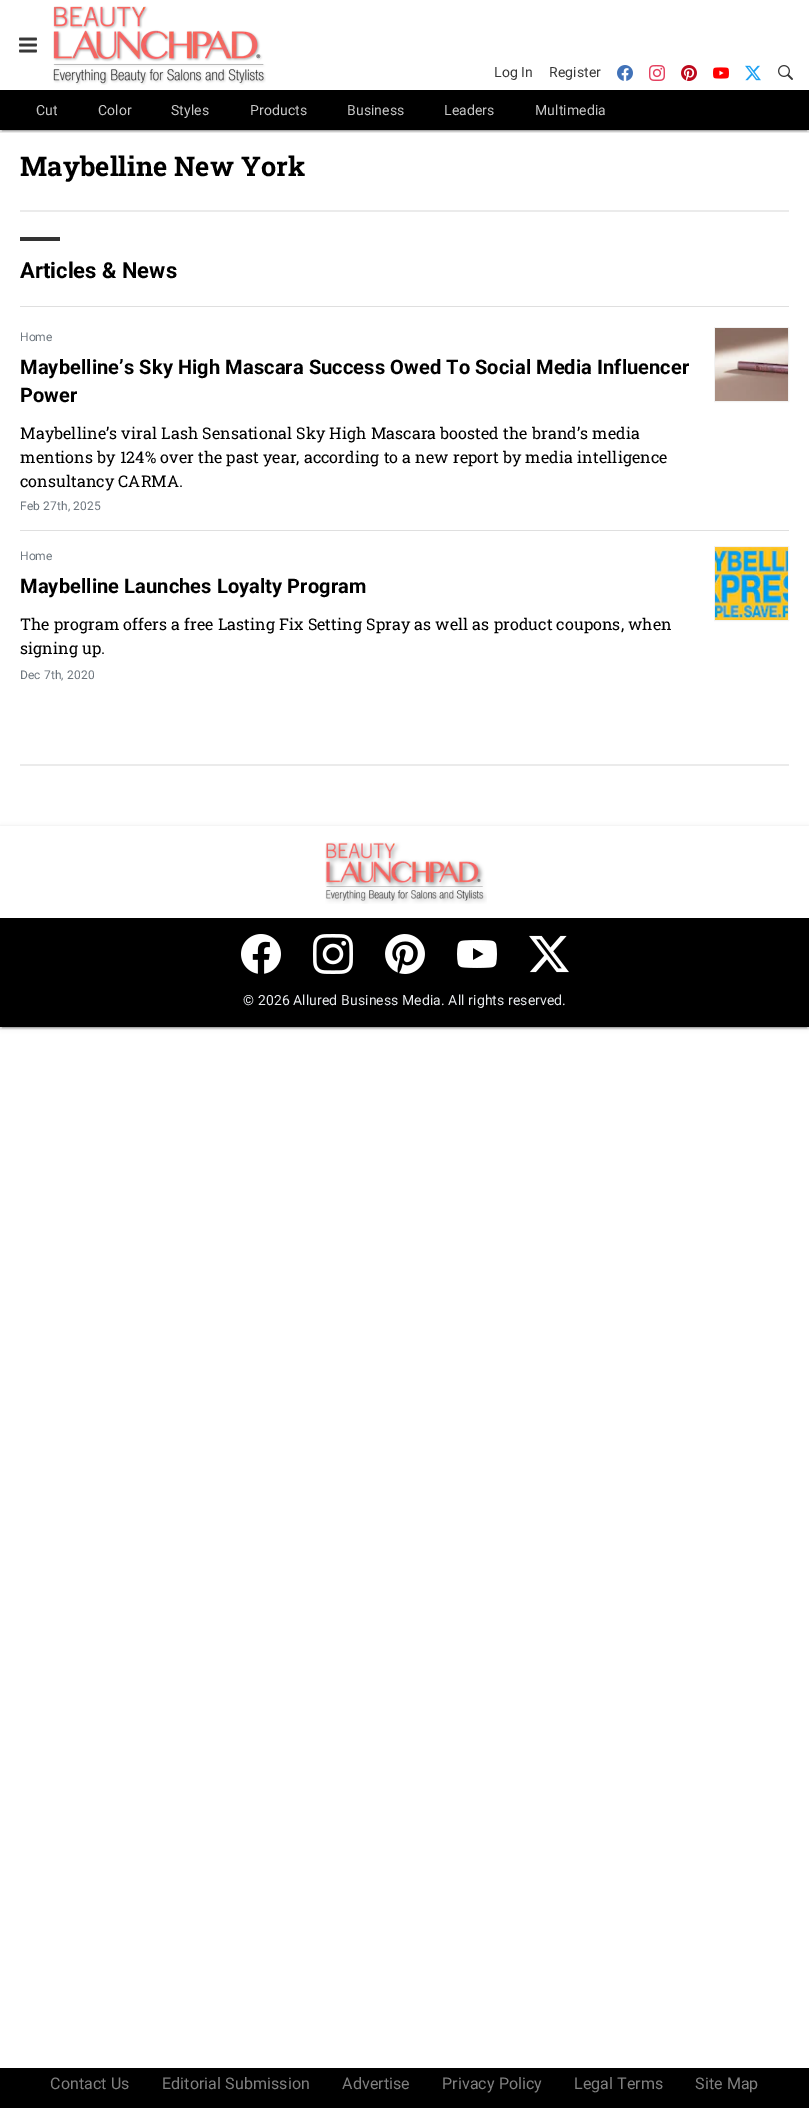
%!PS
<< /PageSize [809 2108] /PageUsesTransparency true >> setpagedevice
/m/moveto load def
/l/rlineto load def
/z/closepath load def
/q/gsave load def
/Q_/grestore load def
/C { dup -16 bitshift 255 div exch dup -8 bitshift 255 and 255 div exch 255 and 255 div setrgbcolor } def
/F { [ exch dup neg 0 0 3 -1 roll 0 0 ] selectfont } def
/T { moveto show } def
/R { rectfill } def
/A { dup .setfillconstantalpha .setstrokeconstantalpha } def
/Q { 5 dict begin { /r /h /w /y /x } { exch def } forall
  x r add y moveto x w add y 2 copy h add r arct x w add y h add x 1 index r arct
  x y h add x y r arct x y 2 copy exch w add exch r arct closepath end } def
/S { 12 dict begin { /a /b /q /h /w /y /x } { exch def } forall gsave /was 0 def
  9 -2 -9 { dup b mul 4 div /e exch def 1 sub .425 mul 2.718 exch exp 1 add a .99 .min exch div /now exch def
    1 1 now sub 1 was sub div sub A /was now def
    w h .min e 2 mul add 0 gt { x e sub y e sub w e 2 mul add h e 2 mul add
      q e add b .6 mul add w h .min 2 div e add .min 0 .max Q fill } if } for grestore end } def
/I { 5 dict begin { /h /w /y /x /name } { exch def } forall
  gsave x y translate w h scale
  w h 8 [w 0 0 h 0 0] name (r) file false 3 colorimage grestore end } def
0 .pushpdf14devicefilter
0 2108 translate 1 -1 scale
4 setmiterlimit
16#FFFFFF C
0 0 809 2108 R
q
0 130 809 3 rectclip
16#000000 C
0 1 809 130 0 2.5 .12 S
Q_
q
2 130 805 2 rectclip
16#000000 C
2 5 805 126 0 .5 .2 S
Q_
q
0 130 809 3 rectclip
16#000000 C
0 2 809 130 0 1 .14 S
Q_
(1.rgb) 19 37 18 16 I
(2.rgb) 53 6 213 79 I
/Roboto-Regular 14 F
16#383838 C
494 77 m .1 0 (Log In) ashow
549 77 m .1 0 (Register) ashow
(3.rgb) 617 65 16 16 I
(4.rgb) 649 65 16 16 I
(5.rgb) 681 65 16 16 I
(6.rgb) 713 67 16 12 I
(7.rgb) 745 65 16 16 I
(8.rgb) 778 65 15 15 I
16#000000 C
0 90 809 40 R
16#C7C7C7 C
36 115 m .1 0 (Cut) ashow
98 115 m .1 0 (Color) ashow
171 115 m .1 0 (Styles) ashow
250 115 m .1 0 (Products) ashow
347 115 m .1 0 (Business) ashow
444 115 m .1 0 (Leaders) ashow
535 115 m .1 0 (Multimedia) ashow
16#EBEBEB C
20 210 769 2 R
/RobotoSlab-Bold 27 F
16#000000 C
20 176 m .1 0 (Maybelline New York) ashow
16#EBEBEB C
20 764 769 2 R
16#333333 C
20 237 40 4 R
/Roboto-Bold 22 F
16#000000 C
(Articles & News) 20 278 T
16#DFDFDF C
20 306 769 1 R
20 530 769 1 R
/Roboto-Regular 12 F
16#6C757D C
(Home) 20 341 T
/Roboto-Bold 20 F
16#000000 C
20 374 m .1 0 (Maybelline’s Sky High Mascara Success Owed To Social Media Influencer) ashow
20 402 m .1 0 (Power) ashow
/RobotoSlab-Regular 16 F
20 439 m .1 0 (Maybelline’s viral Lash Sensational Sky High Mascara boosted the brand’s media) ashow
20 463 m .1 0 (mentions by 124% over the past year, according to a new report by media intelligence) ashow
20 487 m .1 0 (consultancy CARMA.) ashow
/Roboto-Regular 12 F
16#6C757D C
20 510 m .1 0 (Feb 27th, 2025) ashow
16#F2F2F2 C
714.5 327.5 74 74 rectstroke
(9.rgb) 715 328 73 73 I
16#6C757D C
(Home) 20 560 T
/Roboto-Bold 20 F
16#000000 C
20 593 m .1 0 (Maybelline Launches Loyalty Program) ashow
/RobotoSlab-Regular 16 F
20 630 m .1 0 (The program offers a free Lasting Fix Setting Spray as well as product coupons, when) ashow
20 654 m .1 0 (signing up.) ashow
/Roboto-Regular 12 F
16#6C757D C
20 679 m .1 0 (Dec 7th, 2020) ashow
16#F2F2F2 C
714.5 546.5 74 74 rectstroke
(10.rgb) 715 547 73 73 I
q
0 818 m 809 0 l 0 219 l -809 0 l z 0 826 m 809 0 l 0 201 l -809 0 l z eoclip newpath
16#000000 C
0 827 809 201 0 2.5 .12 S
Q_
q
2 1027 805 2 rectclip
16#000000 C
2 831 805 197 0 .5 .2 S
Q_
q
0 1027 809 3 rectclip
16#000000 C
0 828 809 201 0 1 .14 S
Q_
(11.rgb) 325 842 162 62 I
16#000000 C
0 918 809 109 R
(12.rgb) 241 934 40 40 I
(13.rgb) 313 934 40 40 I
(14.rgb) 385 934 40 40 I
(15.rgb) 457 940 40 28 I
(16.rgb) 529 935 40 38 I
/Roboto-Regular 14 F
16#E9ECEF C
243 1005 m .1 0 (© 2026 Allured Business Media. All rights reserved.) ashow
16#000000 C
0 2068 809 40 R
/Roboto-Regular 16 F
16#808080 C
50 2089 m .1 0 (Contact Us) ashow
162 2089 m .1 0 (Editorial Submission) ashow
342 2089 m .1 0 (Advertise) ashow
442 2089 m .1 0 (Privacy Policy) ashow
574 2089 m .1 0 (Legal Terms) ashow
695 2089 m .1 0 (Site Map) ashow
.poppdf14devicefilter showpage
